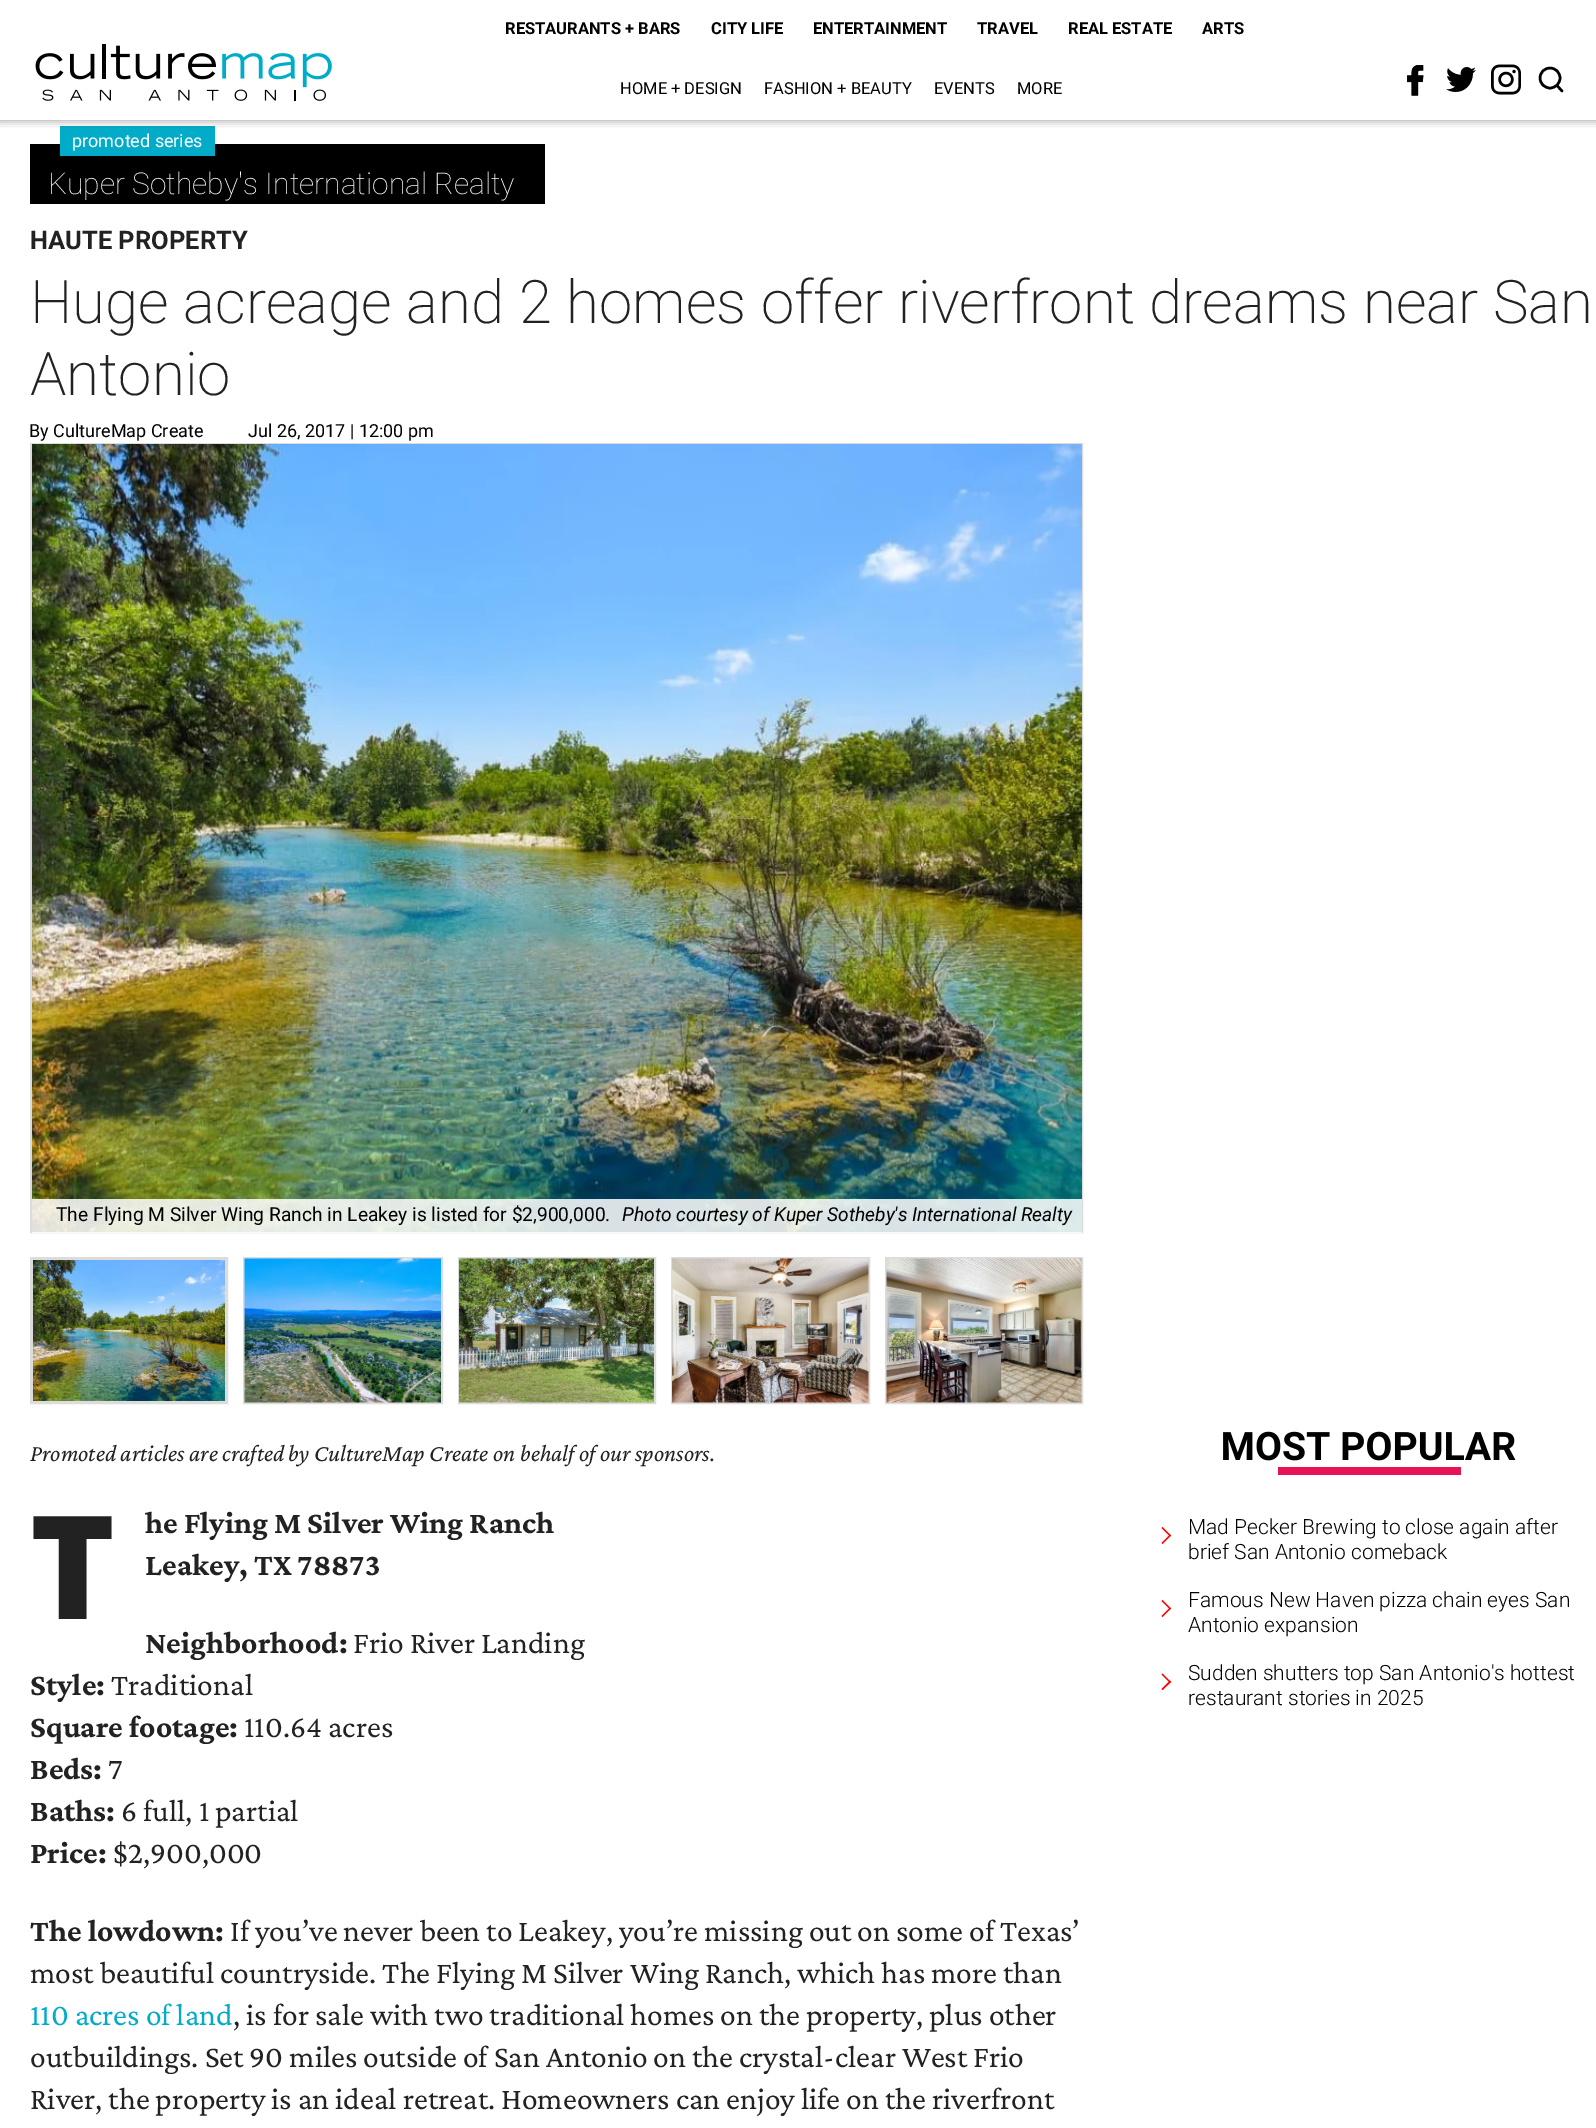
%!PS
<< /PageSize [1596 2128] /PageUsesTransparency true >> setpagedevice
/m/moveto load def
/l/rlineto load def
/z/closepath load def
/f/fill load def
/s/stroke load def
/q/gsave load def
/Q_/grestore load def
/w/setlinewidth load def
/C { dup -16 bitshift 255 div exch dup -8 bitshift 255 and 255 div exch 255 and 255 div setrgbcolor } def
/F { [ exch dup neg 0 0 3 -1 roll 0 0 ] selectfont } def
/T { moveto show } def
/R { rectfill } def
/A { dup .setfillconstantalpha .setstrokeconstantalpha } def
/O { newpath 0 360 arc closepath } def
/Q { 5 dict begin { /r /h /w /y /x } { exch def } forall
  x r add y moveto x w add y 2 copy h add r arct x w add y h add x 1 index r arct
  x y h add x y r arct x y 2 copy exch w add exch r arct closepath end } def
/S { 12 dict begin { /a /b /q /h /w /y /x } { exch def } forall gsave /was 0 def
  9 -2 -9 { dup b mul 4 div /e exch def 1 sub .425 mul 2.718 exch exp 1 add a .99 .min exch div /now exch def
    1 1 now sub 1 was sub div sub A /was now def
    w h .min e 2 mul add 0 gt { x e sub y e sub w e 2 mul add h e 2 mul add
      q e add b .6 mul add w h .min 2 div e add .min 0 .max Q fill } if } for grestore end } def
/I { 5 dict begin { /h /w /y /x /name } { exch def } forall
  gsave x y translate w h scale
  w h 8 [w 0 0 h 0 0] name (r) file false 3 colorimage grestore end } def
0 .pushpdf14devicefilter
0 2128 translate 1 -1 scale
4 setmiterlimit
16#FFFFFF C
0 0 1596 2128 R
16#000000 C
30 144 515 60 R
16#02ABC8 C
60 126 155 30 R
q
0 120 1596 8 rectclip
16#000000 C
-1 -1 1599 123 0 4 .28 S
Q_
(1.rgb) 35 44 297 57 I
/Roboto-Bold 16.5 F
16#000000 C
(RESTAURANTS + BARS) 505 34 T
(CITY LIFE) 711 34 T
(ENTERTAINMENT) 813 34 T
(TRAVEL) 977 34 T
(REAL ESTATE) 1068 34 T
(ARTS) 1202 34 T
/Roboto-Regular 16.5 F
(HOME + DESIGN) 620 94 T
(FASHION + BEAUTY) 764 94 T
(EVENTS) 934 94 T
(MORE) 1017 94 T
(2.rgb) 1407 65 17 31 I
(3.rgb) 1446 67 30 25 I
(4.rgb) 1491 64 30 31 I
2.5 w
1550 78 10 O s
1 setlinecap
1 setlinejoin
1562 91 m -5 -5.5 l s
/Roboto-Regular 18 F
16#FFFFFF C
(promoted series) 72 147 T
/Roboto-Thin 30 F
(Kuper Sotheby's International Realty) 48 194 T
/Roboto-Bold 25.5 F
16#222222 C
(HAUTE PROPERTY) 30 249 T
/Roboto-ExtraLight 60 F
(Huge acreage and 2 homes offer riverfront dreams near San) 30 323 T
(Antonio) 30 395 T
/Roboto-Regular 18 F
16#000000 C
(By CultureMap Create) 29 437 T
(Jul 26, 2017 | 12:00 pm) 248 437 T
16#DCDCDC C
2 w
0 setlinecap
0 setlinejoin
31 444 1051 788 rectstroke
(5.rgb) 32 444 1050 788 I
0.85 A
16#FFFFFF C
32 1199 1050 34 R
/Roboto-Regular 19.2 F
1 A
16#000000 C
(The Flying M Silver Wing Ranch in Leakey is listed for $2,900,000.) 56 1221 T
/Roboto-Italic 19.2 F
(Photo courtesy of Kuper Sotheby's International Realty) 622 1221 T
16#DCDCDC C
3 w
31.5 1258.5 195 144 rectstroke
(6.rgb) 33 1260 192 141 I
2 w
244 1258 198 145 rectstroke
(7.rgb) 244 1258 197 145 I
459 1258 196 145 rectstroke
(8.rgb) 459 1258 195 145 I
672 1258 197 145 rectstroke
(9.rgb) 672 1258 197 145 I
886 1258 196 145 rectstroke
(10.rgb) 886 1258 196 145 I
/CrimsonPro-Italic 24 F
16#222222 C
(Promoted articles are crafted by CultureMap Create on behalf of our sponsors.) 30 1461 T
/NotoSans-Black 144 F
(T) 30 1619 T
/CrimsonPro-Bold 31.5 F
(he Flying M Silver Wing Ranch) 145 1533 T
(Leakey, TX 78873) 145 1575 T
(Neighborhood:) 145 1653 T
/CrimsonPro-Regular 31.5 F
(Frio River Landing) 353 1653 T
/CrimsonPro-Bold 31.5 F
(Style:) 30 1695 T
/CrimsonPro-Regular 31.5 F
(Traditional) 111 1695 T
/CrimsonPro-Bold 31.5 F
(Square footage:) 30 1737 T
/CrimsonPro-Regular 31.5 F
(110.64 acres) 244 1737 T
/CrimsonPro-Bold 31.5 F
(Beds:) 30 1779 T
/CrimsonPro-Regular 31.5 F
(7) 108 1779 T
/CrimsonPro-Bold 31.5 F
(Baths:) 30 1821 T
/CrimsonPro-Regular 31.5 F
(6 full, 1 partial) 121 1821 T
/CrimsonPro-Bold 31.5 F
(Price:) 30 1863 T
/CrimsonPro-Regular 31.5 F
($2,900,000) 113 1863 T
/CrimsonPro-Bold 31.5 F
(The lowdown:) 30 1941 T
/CrimsonPro-Regular 31.5 F
(If you’ve never been to Leakey, you’re missing out on some of Texas’) 230 1941 T
(most beautiful countryside. The Flying M Silver Wing Ranch, which has more than) 30 1983 T
16#02ABC8 C
(110 acres of land) 30 2025 T
16#222222 C
(, is for sale with two traditional homes on the property, plus other) 233 2025 T
(outbuildings. Set 90 miles outside of San Antonio on the crystal-clear West Frio) 30 2067 T
(River, the property is an ideal retreat. Homeowners can enjoy life on the riverfront) 30 2109 T
(11.rgb) 1223 1431 293 44 I
16#FF0000 C
1170 1536.5 m -8.5 -8.5 l 1 -1 l 8.5 8.5 l z f
1162.5 1544 m -1 -1 l 8.5 -8.5 l 1 1 l z f
/Roboto-Light 21 F
16#000000 C
(Mad Pecker Brewing to close again after) 1188 1534 T
(brief San Antonio comeback) 1188 1559 T
16#FF0000 C
1170 1609.5 m -8.5 -8.5 l 1 -1 l 8.5 8.5 l z f
1162.5 1617 m -1 -1 l 8.5 -8.5 l 1 1 l z f
16#000000 C
(Famous New Haven pizza chain eyes San) 1188 1607 T
(Antonio expansion) 1188 1632 T
16#FF0000 C
1170 1683 m -8.5 -8.5 l 1 -1 l 8.5 8.5 l z f
1162.5 1690 m -1 -1 l 8.5 -8.5 l 1 1.5 l z f
16#000000 C
(Sudden shutters top San Antonio's hottest) 1188 1680 T
(restaurant stories in 2025) 1188 1705 T
.poppdf14devicefilter showpage
